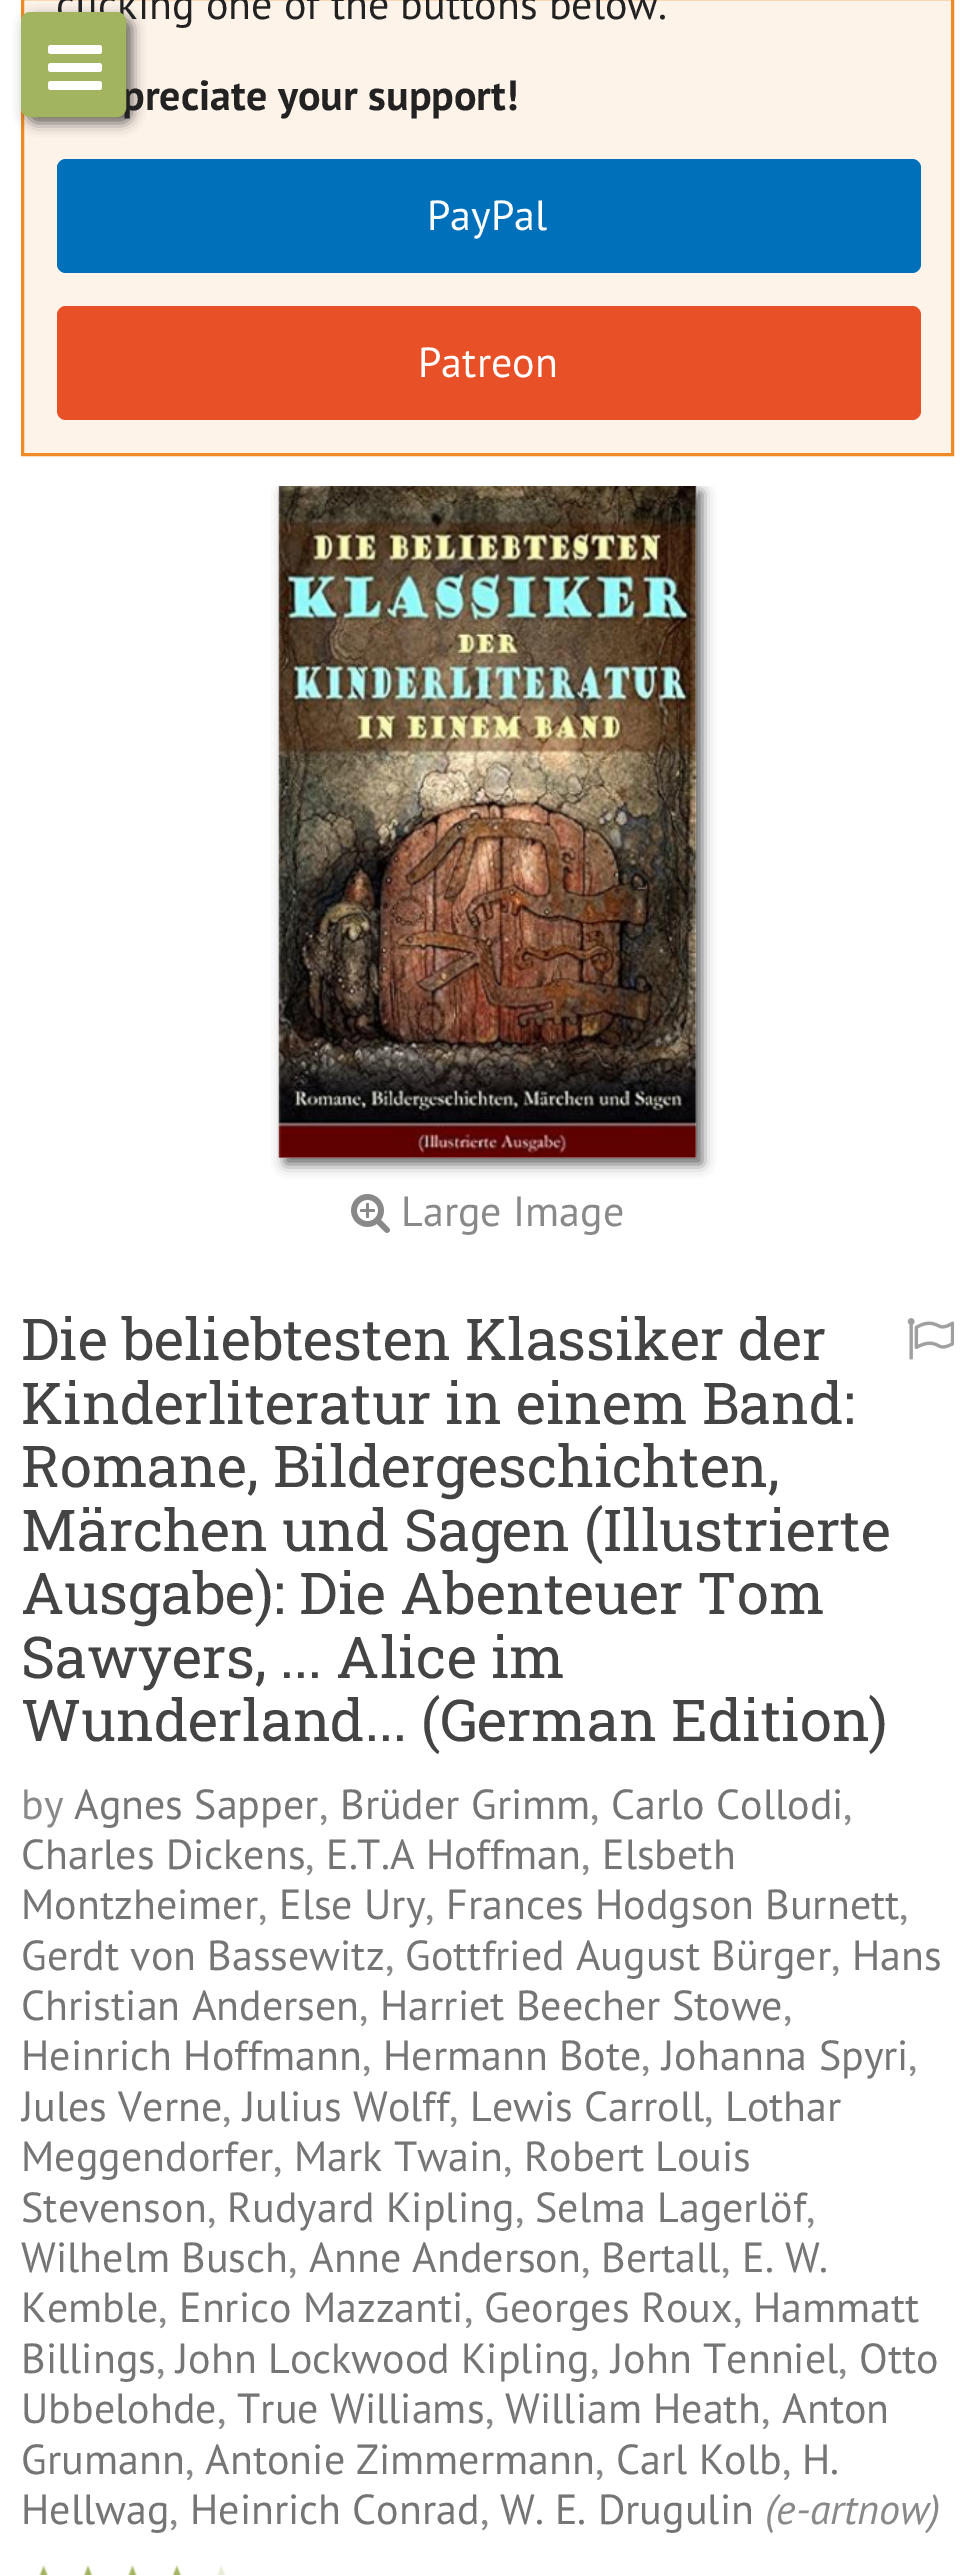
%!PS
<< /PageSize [973 2575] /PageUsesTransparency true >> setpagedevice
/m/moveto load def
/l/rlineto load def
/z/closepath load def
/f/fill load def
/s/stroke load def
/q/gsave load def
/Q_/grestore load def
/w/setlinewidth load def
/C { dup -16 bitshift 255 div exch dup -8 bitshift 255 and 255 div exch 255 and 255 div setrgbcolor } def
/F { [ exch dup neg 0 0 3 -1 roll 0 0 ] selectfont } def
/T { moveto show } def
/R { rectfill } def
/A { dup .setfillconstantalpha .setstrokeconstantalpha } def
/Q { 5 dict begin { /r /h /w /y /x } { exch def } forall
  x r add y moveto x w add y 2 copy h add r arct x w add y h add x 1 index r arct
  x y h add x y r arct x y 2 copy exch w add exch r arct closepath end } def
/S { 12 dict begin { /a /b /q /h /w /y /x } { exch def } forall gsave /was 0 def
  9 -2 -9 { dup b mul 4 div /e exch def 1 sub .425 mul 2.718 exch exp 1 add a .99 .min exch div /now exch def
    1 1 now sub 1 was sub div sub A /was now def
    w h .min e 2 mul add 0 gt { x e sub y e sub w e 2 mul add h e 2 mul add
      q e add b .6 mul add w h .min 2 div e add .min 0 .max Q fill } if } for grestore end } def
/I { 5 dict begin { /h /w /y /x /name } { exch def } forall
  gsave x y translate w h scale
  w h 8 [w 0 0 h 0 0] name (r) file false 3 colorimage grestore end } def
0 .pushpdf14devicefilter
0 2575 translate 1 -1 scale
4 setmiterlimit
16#FFFFFF C
0 0 973 2575 R
16#FEF3E9 C
22.5 -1.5 m 930 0 l 0 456 l -930 0 l z q f Q_
16#F08A24 C
3 w
s
16#222222 C
27 18 105 105 9 6.5 .7 S
/PTSans-Regular 42 F
(clicking one of the buttons below.) 56 19 T
/PTSans-Bold 42 F
(preciate your support!) 122 110 T
16#A3B460 C
22.5 13.5 102 102 7.5 Q q f Q_
s
(1.rgb) 48 45 54 45 I
16#0070BA C
57 159 864 114 9 Q f
/PTSans-Regular 42 F
16#FFFFFF C
(PayPal) 427 230 T
16#E85128 C
57 306 864 114 9 Q f
16#FFFFFF C
(Patreon) 418 377 T
q
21 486 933 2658 rectclip
16#222222 C
285 492 417 672 0 6.5 .7 S
Q_
(2.rgb) 278 486 420 672 I
(3.rgb) 351 1194 39 39 I
16#898989 C
(Large Image) 401 1226 T
/RobotoSlab-Regular 57.75 F
16#444444 C
(Die beliebtesten Klassiker der) 21 1360 T
(Kinderliteratur in einem Band:) 21 1424 T
(Romane, Bildergeschichten,) 21 1487 T
(Märchen und Sagen \(Illustrierte) 21 1551 T
(Ausgabe\): Die Abenteuer Tom) 21 1614 T
(Sawyers, ... Alice im) 21 1678 T
(Wunderland... \(German Edition\)) 21 1741 T
(4.rgb) 907 1318 47 42 I
/PTSans-Regular 42 F
16#898989 C
(by) 21 1819 T
16#757575 C
(Agnes Sapper) 74 1819 T
16#898989 C
(,) 319 1819 T
16#757575 C
(Brüder Grimm) 340 1819 T
16#898989 C
(,) 590 1819 T
16#757575 C
(Carlo Collodi) 611 1819 T
16#898989 C
(,) 843 1819 T
16#757575 C
(Charles Dickens) 21 1869 T
16#898989 C
(,) 305 1869 T
16#757575 C
(E.T.A Hoffman) 326 1869 T
16#898989 C
(,) 581 1869 T
16#757575 C
(Elsbeth) 602 1869 T
(Montzheimer) 21 1919 T
16#898989 C
(,) 258 1919 T
16#757575 C
(Else Ury) 279 1919 T
16#898989 C
(,) 425 1919 T
16#757575 C
(Frances Hodgson Burnett) 446 1919 T
16#898989 C
(,) 899 1919 T
16#757575 C
(Gerdt von Bassewitz) 21 1970 T
16#898989 C
(,) 385 1970 T
16#757575 C
(Gottfried August Bürger) 405 1970 T
16#898989 C
(,) 831 1970 T
16#757575 C
(Hans) 852 1970 T
(Christian Andersen) 21 2020 T
16#898989 C
(,) 359 2020 T
16#757575 C
(Harriet Beecher Stowe) 380 2020 T
16#898989 C
(,) 783 2020 T
16#757575 C
(Heinrich Hoffmann) 21 2070 T
16#898989 C
(,) 362 2070 T
16#757575 C
(Hermann Bote) 383 2070 T
16#898989 C
(,) 641 2070 T
16#757575 C
(Johanna Spyri) 662 2070 T
16#898989 C
(,) 908 2070 T
q
21 486 933 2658 rectclip
16#757575 C
(Jules Verne) 21 2121 T
Q_
(,) 222 2121 T
16#757575 C
(Julius Wolff) 243 2121 T
16#898989 C
(,) 449 2121 T
16#757575 C
(Lewis Carroll) 470 2121 T
16#898989 C
(,) 704 2121 T
16#757575 C
(Lothar) 725 2121 T
(Meggendorfer) 21 2171 T
16#898989 C
(,) 273 2171 T
16#757575 C
(Mark Twain) 294 2171 T
16#898989 C
(,) 503 2171 T
16#757575 C
(Robert Louis) 524 2171 T
(Stevenson) 21 2222 T
16#898989 C
(,) 207 2222 T
16#757575 C
(Rudyard Kipling) 227 2222 T
16#898989 C
(,) 515 2222 T
16#757575 C
(Selma Lagerlöf) 535 2222 T
16#898989 C
(,) 806 2222 T
16#757575 C
(Wilhelm Busch) 21 2272 T
16#898989 C
(,) 288 2272 T
16#757575 C
(Anne Anderson) 309 2272 T
16#898989 C
(,) 581 2272 T
16#757575 C
(Bertall) 601 2272 T
16#898989 C
(,) 721 2272 T
16#757575 C
(E. W.) 742 2272 T
(Kemble) 21 2322 T
16#898989 C
(,) 158 2322 T
16#757575 C
(Enrico Mazzanti) 179 2322 T
16#898989 C
(,) 464 2322 T
16#757575 C
(Georges Roux) 484 2322 T
16#898989 C
(,) 733 2322 T
16#757575 C
(Hammatt) 753 2322 T
(Billings) 21 2373 T
16#898989 C
(,) 156 2373 T
16#757575 C
(John Lockwood Kipling) 176 2373 T
16#898989 C
(,) 590 2373 T
16#757575 C
(John Tenniel) 611 2373 T
16#898989 C
(,) 838 2373 T
16#757575 C
(Otto) 859 2373 T
(Ubbelohde) 21 2423 T
16#898989 C
(,) 217 2423 T
16#757575 C
(True Williams) 237 2423 T
16#898989 C
(,) 485 2423 T
16#757575 C
(William Heath) 505 2423 T
16#898989 C
(,) 761 2423 T
16#757575 C
(Anton) 782 2423 T
(Grumann) 21 2474 T
16#898989 C
(,) 185 2474 T
16#757575 C
(Antonie Zimmermann) 205 2474 T
16#898989 C
(,) 595 2474 T
16#757575 C
(Carl Kolb) 616 2474 T
16#898989 C
(,) 782 2474 T
16#757575 C
(H.) 802 2474 T
(Hellwag) 21 2524 T
16#898989 C
(,) 169 2524 T
16#757575 C
(Heinrich Conrad) 190 2524 T
16#898989 C
(,) 480 2524 T
16#757575 C
(W. E. Drugulin) 500 2524 T
/PTSans-Italic 42 F
16#898989 C
(\(e-artnow\)) 765 2524 T
(5.rgb) 39 2564 188 11 I
0.75 A
16#FFFFFF C
216 2564 11 11 R
.poppdf14devicefilter showpage
